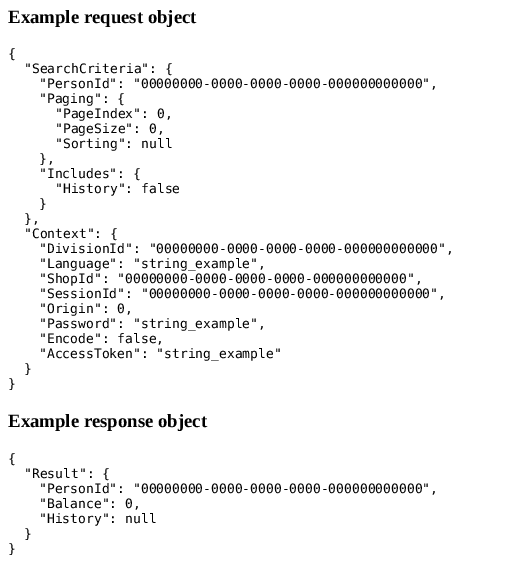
%!PS
<< /PageSize [522 584] >> setpagedevice
/C { dup -16 bitshift 255 div exch dup -8 bitshift 255 and 255 div exch 255 and 255 div setrgbcolor } def
/F { [ exch dup neg 0 0 3 -1 roll 0 0 ] selectfont } def
/T { moveto show } def
/R { rectfill } def
0 584 translate 1 -1 scale
4 setmiterlimit
16#FFFFFF C
0 0 522 584 R
/LiberationSerif-Bold 18.75 F
16#000000 C
(Example request object) 8 23 T
/DejaVuSansMono-Regular 13 F
({) 8 58 T
("SearchCriteria": {) 24 73 T
("PersonId": "00000000-0000-0000-0000-000000000000",) 39 88 T
("Paging": {) 39 103 T
("PageIndex": 0,) 55 118 T
("PageSize": 0,) 55 133 T
("Sorting": null) 55 148 T
(},) 39 163 T
("Includes": {) 39 178 T
("History": false) 55 193 T
(}) 39 208 T
(},) 24 223 T
("Context": {) 24 238 T
("DivisionId": "00000000-0000-0000-0000-000000000000",) 39 253 T
("Language": "string_example",) 39 268 T
("ShopId": "00000000-0000-0000-0000-000000000000",) 39 283 T
("SessionId": "00000000-0000-0000-0000-000000000000",) 39 298 T
("Origin": 0,) 39 313 T
("Password": "string_example",) 39 328 T
("Encode": false,) 39 343 T
("AccessToken": "string_example") 39 358 T
(}) 24 373 T
(}) 8 388 T
/LiberationSerif-Bold 18.75 F
(Example response object) 8 427 T
/DejaVuSansMono-Regular 13 F
({) 8 463 T
("Result": {) 24 478 T
("PersonId": "00000000-0000-0000-0000-000000000000",) 39 493 T
("Balance": 0,) 39 508 T
("History": null) 39 523 T
(}) 24 538 T
(}) 8 553 T
showpage
